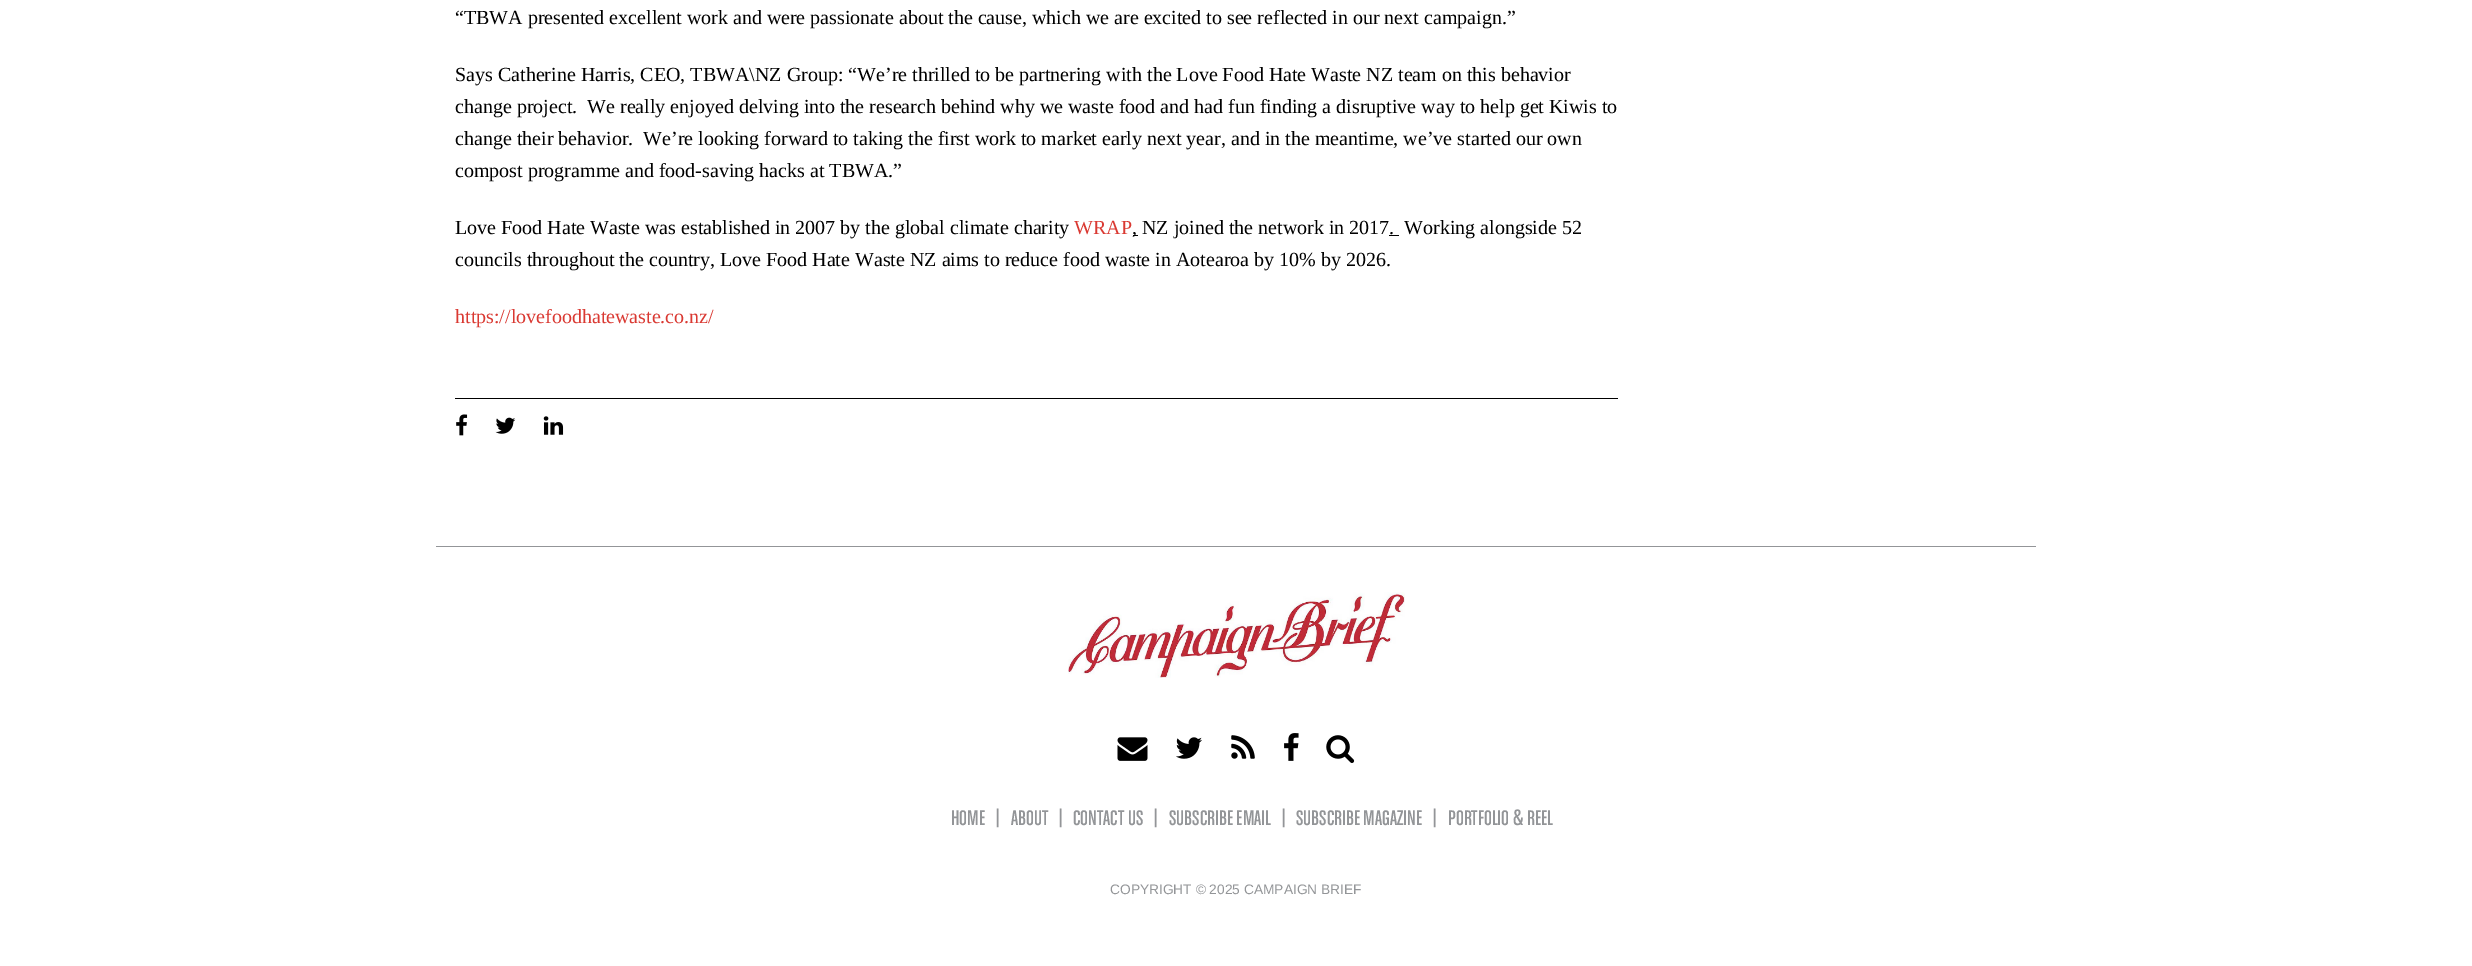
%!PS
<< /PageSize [2472 966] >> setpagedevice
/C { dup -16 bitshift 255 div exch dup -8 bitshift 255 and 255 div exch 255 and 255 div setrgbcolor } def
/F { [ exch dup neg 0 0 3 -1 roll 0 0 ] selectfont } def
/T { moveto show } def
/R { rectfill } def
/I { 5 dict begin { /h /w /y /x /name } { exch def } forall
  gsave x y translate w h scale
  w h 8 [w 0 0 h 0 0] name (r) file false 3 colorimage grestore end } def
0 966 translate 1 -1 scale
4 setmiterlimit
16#FFFFFF C
0 0 2472 966 R
16#000000 C
455 398 1163 1 R
/LiberationSerif-Regular 20 F
(“TBWA presented excellent work and were passionate about the cause, which we are excited to see reflected in our next campaign.”) 455 24 T
(Says Catherine Harris, CEO, TBWA\\NZ Group: “We’re thrilled to be partnering with the Love Food Hate Waste NZ team on this behavior) 455 81 T
(change project.  We really enjoyed delving into the research behind why we waste food and had fun finding a disruptive way to help get Kiwis to) 455 113 T
(change their behavior.  We’re looking forward to taking the first work to market early next year, and in the meantime, we’ve started our own) 455 145 T
(compost programme and food-saving hacks at TBWA.”) 455 177 T
(Love Food Hate Waste was established in 2007 by the global climate charity) 455 234 T
16#DA3932 C
(WRAP) 1074 234 T
16#000000 C
1133 235 5 1 R
(, NZ joined the network in 2017.) 1132 234 T
1389 235 10 1 R
(Working alongside 52) 1404 234 T
(councils throughout the country, Love Food Hate Waste NZ aims to reduce food waste in Aotearoa by 10% by 2026.) 455 266 T
16#DA3932 C
(https://lovefoodhatewaste.co.nz/) 455 323 T
(1.rgb) 456 414 12 22 I
(2.rgb) 495 417 21 17 I
(3.rgb) 543 416 21 19 I
16#939598 C
436 546 1600 1 R
(4.rgb) 1068 592 337 86 I
(5.rgb) 1117 737 31 24 I
(6.rgb) 1176 737 26 22 I
(7.rgb) 1231 735 24 24 I
(8.rgb) 1284 733 15 28 I
(9.rgb) 1326 735 29 28 I
/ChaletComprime-Regular 22.5 F
(HOME) 951 825 T
/LiberationSans-Regular 20 F
(|) 995 823 T
/ChaletComprime-Regular 22.5 F
(ABOUT) 1011 825 T
/LiberationSans-Regular 20 F
(|) 1058 823 T
/ChaletComprime-Regular 22.5 F
(CONTACT US) 1073 825 T
/LiberationSans-Regular 20 F
(|) 1153 823 T
/ChaletComprime-Regular 22.5 F
(SUBSCRIBE EMAIL) 1169 825 T
/LiberationSans-Regular 20 F
(|) 1281 823 T
/ChaletComprime-Regular 22.5 F
(SUBSCRIBE MAGAZINE) 1296 825 T
/LiberationSans-Regular 20 F
(|) 1432 823 T
/ChaletComprime-Regular 22.5 F
(PORTFOLIO & REEL) 1448 825 T
/LiberationSans-Regular 13.75 F
(COPYRIGHT © 2025 CAMPAIGN BRIEF) 1110 894 T
showpage
